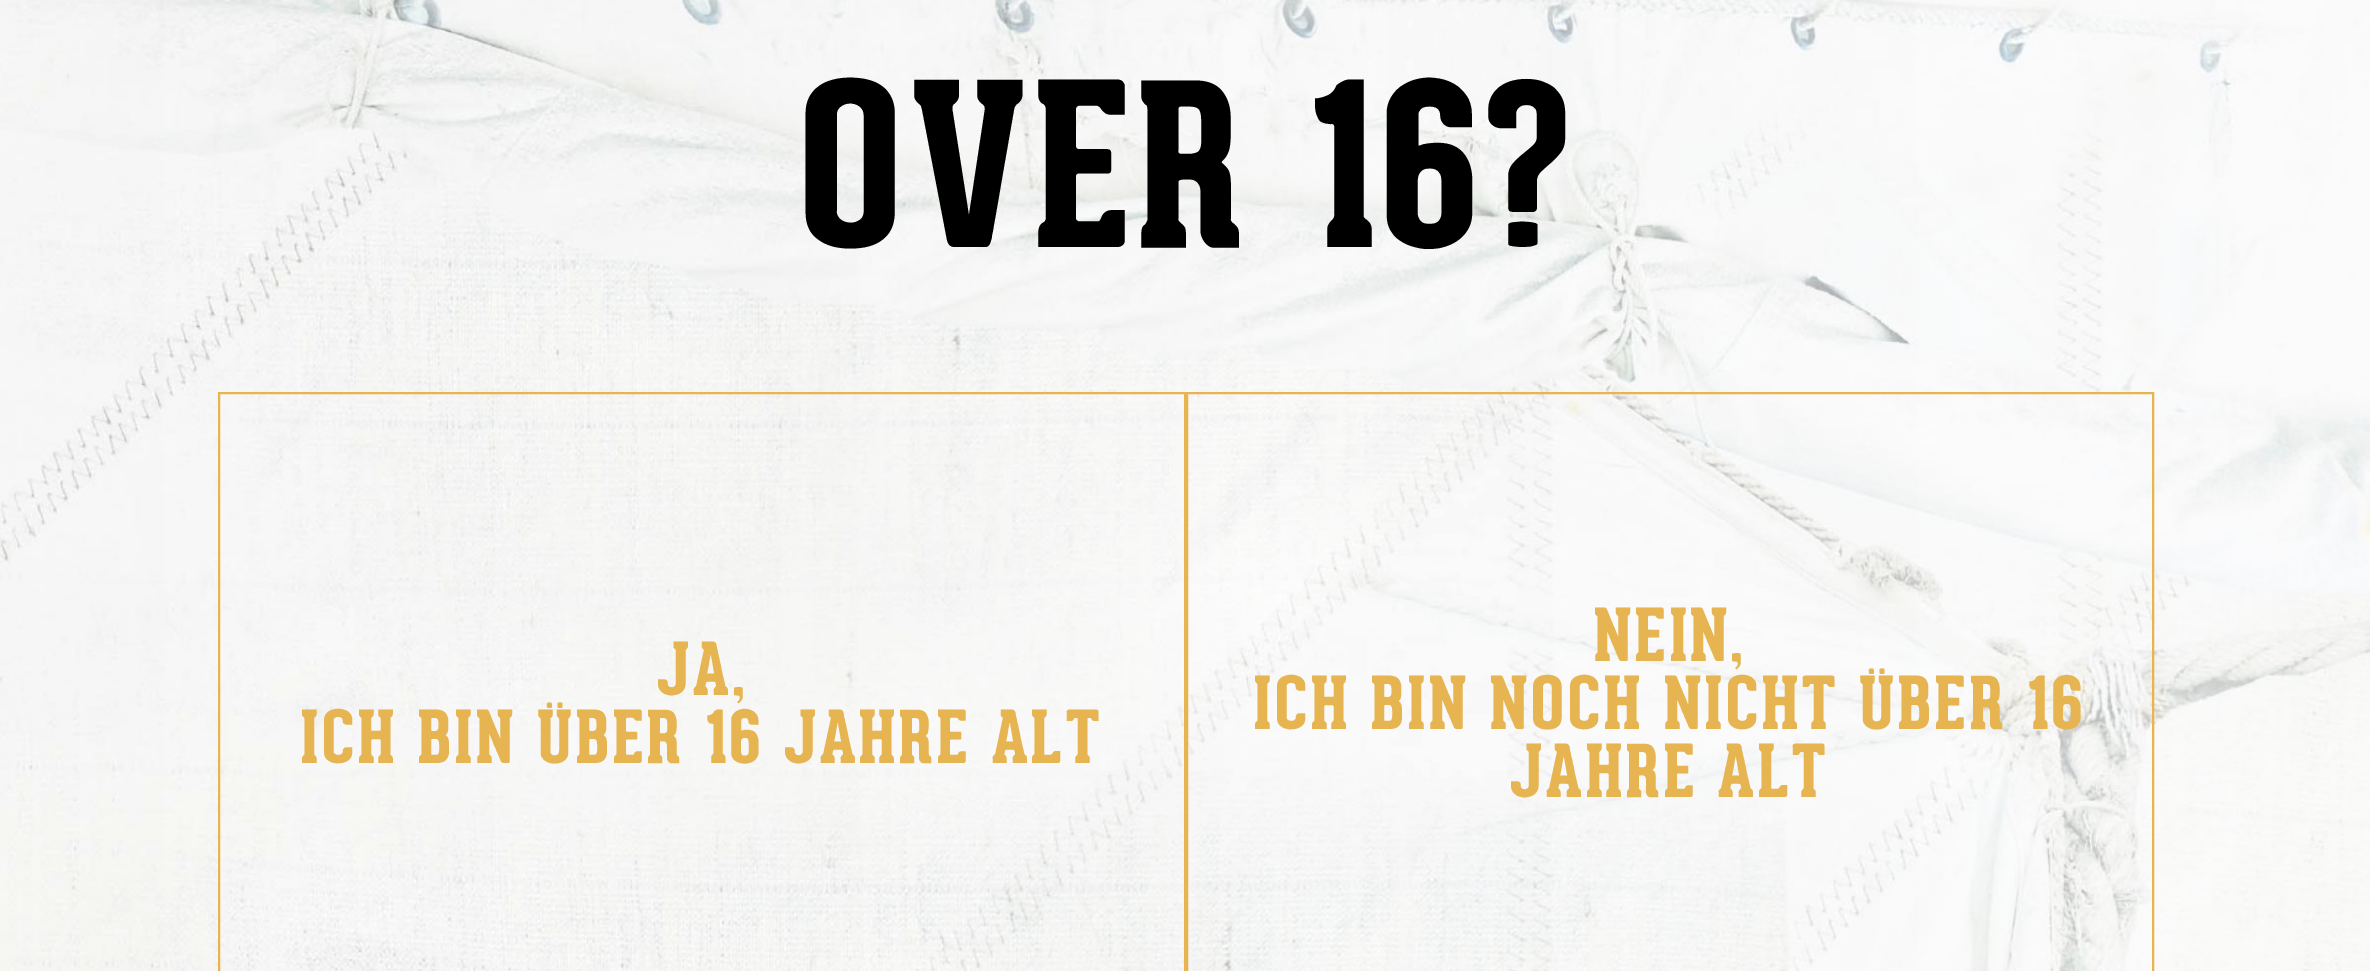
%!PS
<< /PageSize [2370 971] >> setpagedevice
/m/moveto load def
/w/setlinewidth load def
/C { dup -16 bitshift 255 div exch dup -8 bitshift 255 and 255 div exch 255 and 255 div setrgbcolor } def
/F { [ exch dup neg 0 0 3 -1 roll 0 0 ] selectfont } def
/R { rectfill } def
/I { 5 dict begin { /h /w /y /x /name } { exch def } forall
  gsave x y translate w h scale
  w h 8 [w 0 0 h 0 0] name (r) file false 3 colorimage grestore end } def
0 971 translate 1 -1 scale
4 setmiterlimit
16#FFFFFF C
0 0 2370 971 R
(1.rgb) 0 0 2370 971 I
/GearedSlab-ExtraBold 224 F
16#000000 C
796 247 m 2 0 (OVER 16?) ashow
16#E6B450 C
2 w
219 393 966 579 rectstroke
/GearedSlab-ExtraBold 71.6 F
656 695 m 2 0 (JA,) ashow
300 763 m 2 0 (ICH BIN ÜBER 16 JAHRE ALT) ashow
1187 393 966 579 rectstroke
1593 661 m 2 0 (NEIN,) ashow
1253 729 m 2 0 (ICH BIN NOCH NICHT ÜBER 16) ashow
1509 797 m 2 0 (JAHRE ALT) ashow
showpage
